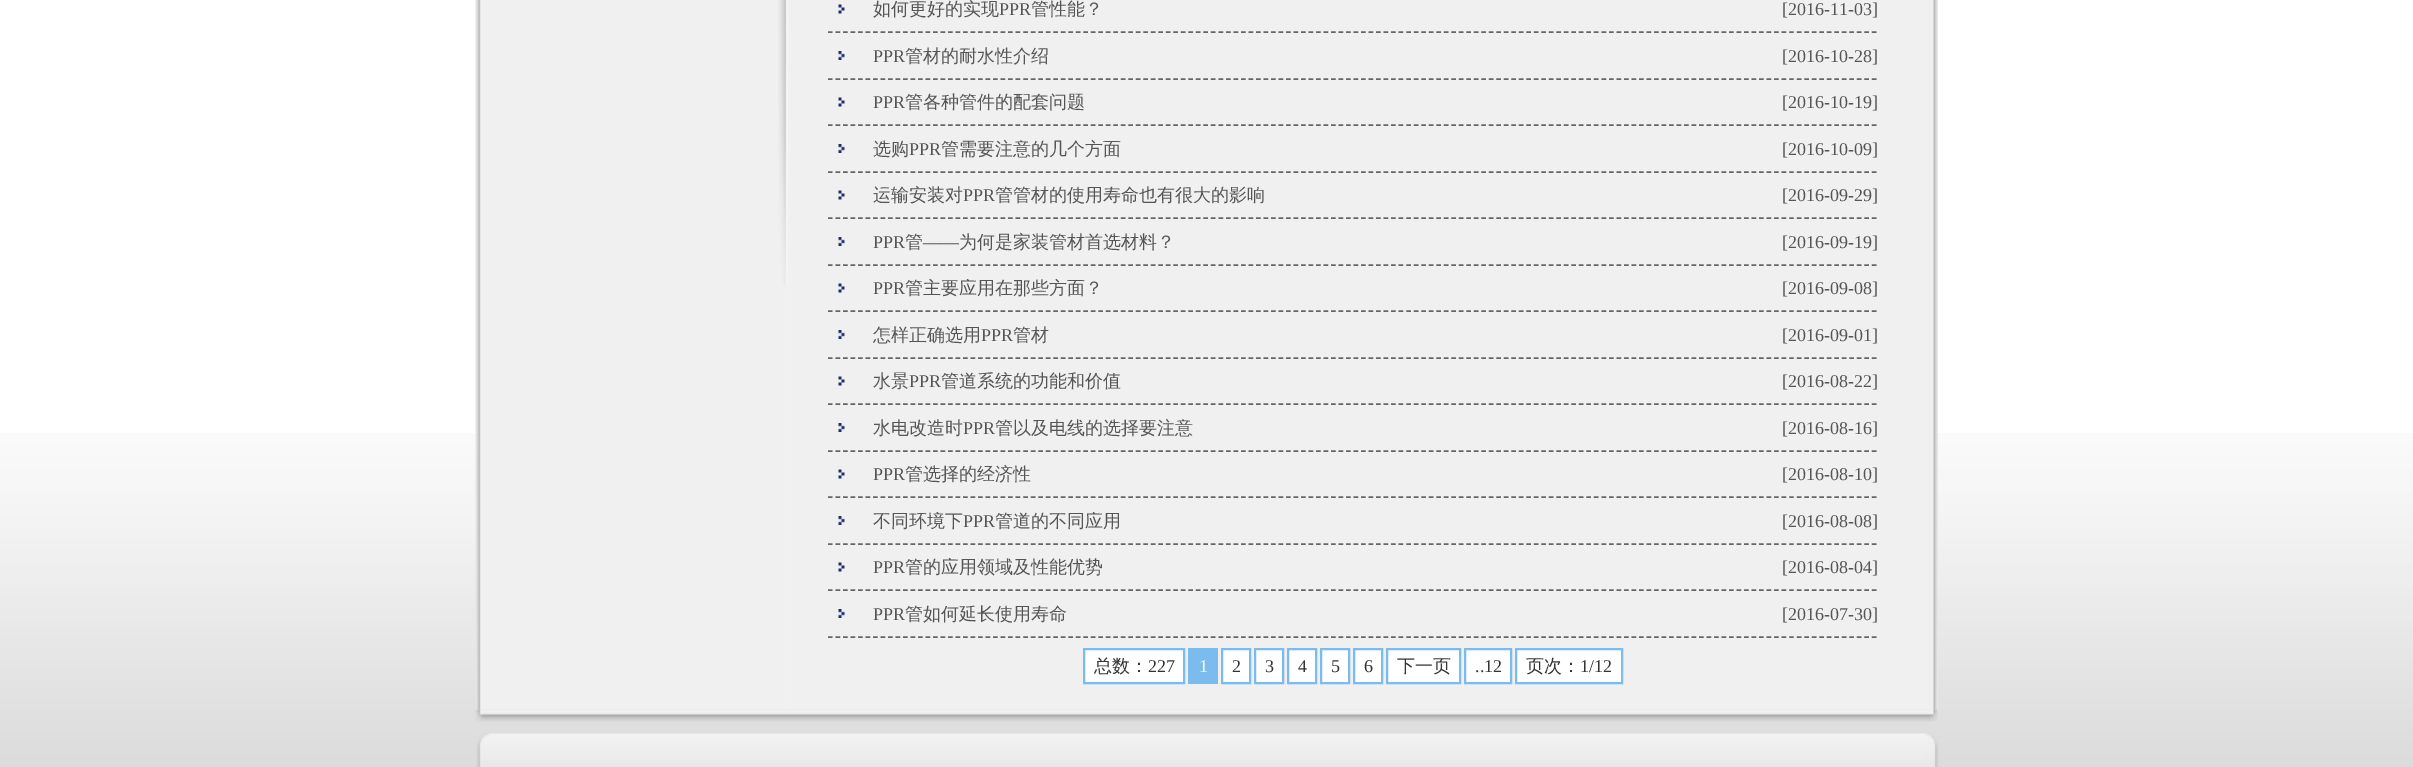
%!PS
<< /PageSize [2413 767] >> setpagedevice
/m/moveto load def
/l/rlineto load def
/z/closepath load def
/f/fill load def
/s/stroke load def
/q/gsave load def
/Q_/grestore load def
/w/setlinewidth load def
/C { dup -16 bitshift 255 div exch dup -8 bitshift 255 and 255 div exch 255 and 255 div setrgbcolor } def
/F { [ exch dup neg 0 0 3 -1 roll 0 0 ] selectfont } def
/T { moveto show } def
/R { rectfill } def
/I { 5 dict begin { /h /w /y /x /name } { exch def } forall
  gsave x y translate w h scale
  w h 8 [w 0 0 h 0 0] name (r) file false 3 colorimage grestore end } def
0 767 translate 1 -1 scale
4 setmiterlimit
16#FFFFFF C
0 0 2413 767 R
(1.rgb) 0 433 2413 334 I
(6.rgb) 475 709 1463 13 I
(2.rgb) 475 0 1463 710 I
(3.rgb) 778 0 10 285 I
(4.rgb) 838 4 7 10 I
16#656565 C
1.5 w
[4.5 3.01] 0 setdash
828 32 m 1050 0 l s
/WenQuanYiZenHei-Medium 18 F
16#555555 C
(如何更好的实现) 873 15 T
/LiberationSerif-Regular 18 F
(PPR) 999 15 T
/WenQuanYiZenHei-Medium 18 F
(管性能？) 1031 15 T
/LiberationSerif-Regular 18 F
([2016-11-03]) 1782 15 T
(5.rgb) 838 51 7 9 I
16#656565 C
828 79 m 1050 0 l s
16#555555 C
(PPR) 873 62 T
/WenQuanYiZenHei-Medium 18 F
(管材的耐水性介绍) 905 62 T
/LiberationSerif-Regular 18 F
([2016-10-28]) 1782 62 T
(4.rgb) 838 97 7 10 I
16#656565 C
828 125 m 1050 0 l s
16#555555 C
(PPR) 873 108 T
/WenQuanYiZenHei-Medium 18 F
(管各种管件的配套问题) 905 108 T
/LiberationSerif-Regular 18 F
([2016-10-19]) 1782 108 T
(5.rgb) 838 144 7 9 I
16#656565 C
828 172 m 1050 0 l s
/WenQuanYiZenHei-Medium 18 F
16#555555 C
(选购) 873 155 T
/LiberationSerif-Regular 18 F
(PPR) 909 155 T
/WenQuanYiZenHei-Medium 18 F
(管需要注意的几个方面) 941 155 T
/LiberationSerif-Regular 18 F
([2016-10-09]) 1782 155 T
(4.rgb) 838 190 7 10 I
16#656565 C
828 218 m 1050 0 l s
/WenQuanYiZenHei-Medium 18 F
16#555555 C
(运输安装对) 873 201 T
/LiberationSerif-Regular 18 F
(PPR) 963 201 T
/WenQuanYiZenHei-Medium 18 F
(管管材的使用寿命也有很大的影响) 995 201 T
/LiberationSerif-Regular 18 F
([2016-09-29]) 1782 201 T
(5.rgb) 838 237 7 9 I
16#656565 C
828 265 m 1050 0 l s
16#555555 C
(PPR) 873 248 T
/WenQuanYiZenHei-Medium 18 F
(管) 905 248 T
/LiberationSerif-Regular 18 F
(——) 923 248 T
/WenQuanYiZenHei-Medium 18 F
(为何是家装管材首选材料？) 959 248 T
/LiberationSerif-Regular 18 F
([2016-09-19]) 1782 248 T
(4.rgb) 838 283 7 10 I
16#656565 C
828 311 m 1050 0 l s
16#555555 C
(PPR) 873 294 T
/WenQuanYiZenHei-Medium 18 F
(管主要应用在那些方面？) 905 294 T
/LiberationSerif-Regular 18 F
([2016-09-08]) 1782 294 T
(5.rgb) 838 330 7 9 I
16#656565 C
828 358 m 1050 0 l s
/WenQuanYiZenHei-Medium 18 F
16#555555 C
(怎样正确选用) 873 341 T
/LiberationSerif-Regular 18 F
(PPR) 981 341 T
/WenQuanYiZenHei-Medium 18 F
(管材) 1013 341 T
/LiberationSerif-Regular 18 F
([2016-09-01]) 1782 341 T
(4.rgb) 838 376 7 10 I
16#656565 C
828 404 m 1050 0 l s
/WenQuanYiZenHei-Medium 18 F
16#555555 C
(水景) 873 387 T
/LiberationSerif-Regular 18 F
(PPR) 909 387 T
/WenQuanYiZenHei-Medium 18 F
(管道系统的功能和价值) 941 387 T
/LiberationSerif-Regular 18 F
([2016-08-22]) 1782 387 T
(5.rgb) 838 423 7 9 I
16#656565 C
828 451 m 1050 0 l s
/WenQuanYiZenHei-Medium 18 F
16#555555 C
(水电改造时) 873 434 T
/LiberationSerif-Regular 18 F
(PPR) 963 434 T
/WenQuanYiZenHei-Medium 18 F
(管以及电线的选择要注意) 995 434 T
/LiberationSerif-Regular 18 F
([2016-08-16]) 1782 434 T
(4.rgb) 838 469 7 10 I
16#656565 C
828 497 m 1050 0 l s
16#555555 C
(PPR) 873 480 T
/WenQuanYiZenHei-Medium 18 F
(管选择的经济性) 905 480 T
/LiberationSerif-Regular 18 F
([2016-08-10]) 1782 480 T
(5.rgb) 838 516 7 9 I
16#656565 C
828 544 m 1050 0 l s
/WenQuanYiZenHei-Medium 18 F
16#555555 C
(不同环境下) 873 527 T
/LiberationSerif-Regular 18 F
(PPR) 963 527 T
/WenQuanYiZenHei-Medium 18 F
(管道的不同应用) 995 527 T
/LiberationSerif-Regular 18 F
([2016-08-08]) 1782 527 T
(4.rgb) 838 562 7 10 I
16#656565 C
828 590 m 1050 0 l s
16#555555 C
(PPR) 873 573 T
/WenQuanYiZenHei-Medium 18 F
(管的应用领域及性能优势) 905 573 T
/LiberationSerif-Regular 18 F
([2016-08-04]) 1782 573 T
(5.rgb) 838 609 7 9 I
16#656565 C
828 637 m 1050 0 l s
16#555555 C
(PPR) 873 620 T
/WenQuanYiZenHei-Medium 18 F
(管如何延长使用寿命) 905 620 T
/LiberationSerif-Regular 18 F
([2016-07-30]) 1782 620 T
16#FFFFFF C
1084 649 m 100 0 l 0 34 l -100 0 l z q f Q_
16#7CBBED C
2 w
[] 0 setdash
s
/WenQuanYiZenHei-Medium 18 F
16#333333 C
(总数：) 1094 672 T
/LiberationSerif-Regular 18 F
(227) 1148 672 T
16#7CBBED C
1188 648 30 36 R
16#FFFFFF C
(1) 1199 672 T
1222 649 m 28 0 l 0 34 l -28 0 l z q f Q_
16#7CBBED C
s
16#333333 C
(2) 1232 672 T
16#FFFFFF C
1255 649 m 28 0 l 0 34 l -28 0 l z q f Q_
16#7CBBED C
s
16#333333 C
(3) 1265 672 T
16#FFFFFF C
1288 649 m 28 0 l 0 34 l -28 0 l z q f Q_
16#7CBBED C
s
16#333333 C
(4) 1298 672 T
16#FFFFFF C
1321 649 m 28 0 l 0 34 l -28 0 l z q f Q_
16#7CBBED C
s
16#333333 C
(5) 1331 672 T
16#FFFFFF C
1354 649 m 28 0 l 0 34 l -28 0 l z q f Q_
16#7CBBED C
s
16#333333 C
(6) 1364 672 T
16#FFFFFF C
1387 649 m 73 0 l 0 34 l -73 0 l z q f Q_
16#7CBBED C
s
/WenQuanYiZenHei-Medium 18 F
16#333333 C
(下一页) 1397 672 T
16#FFFFFF C
1465 649 m 46 0 l 0 34 l -46 0 l z q f Q_
16#7CBBED C
s
/LiberationSerif-Regular 18 F
16#333333 C
(..12) 1475 672 T
16#FFFFFF C
1516 649 m 106 0 l 0 34 l -106 0 l z q f Q_
16#7CBBED C
s
/WenQuanYiZenHei-Medium 18 F
16#333333 C
(页次：) 1526 672 T
/LiberationSerif-Regular 18 F
(1/12) 1580 672 T
(7.rgb) 476 733 1463 34 I
showpage
